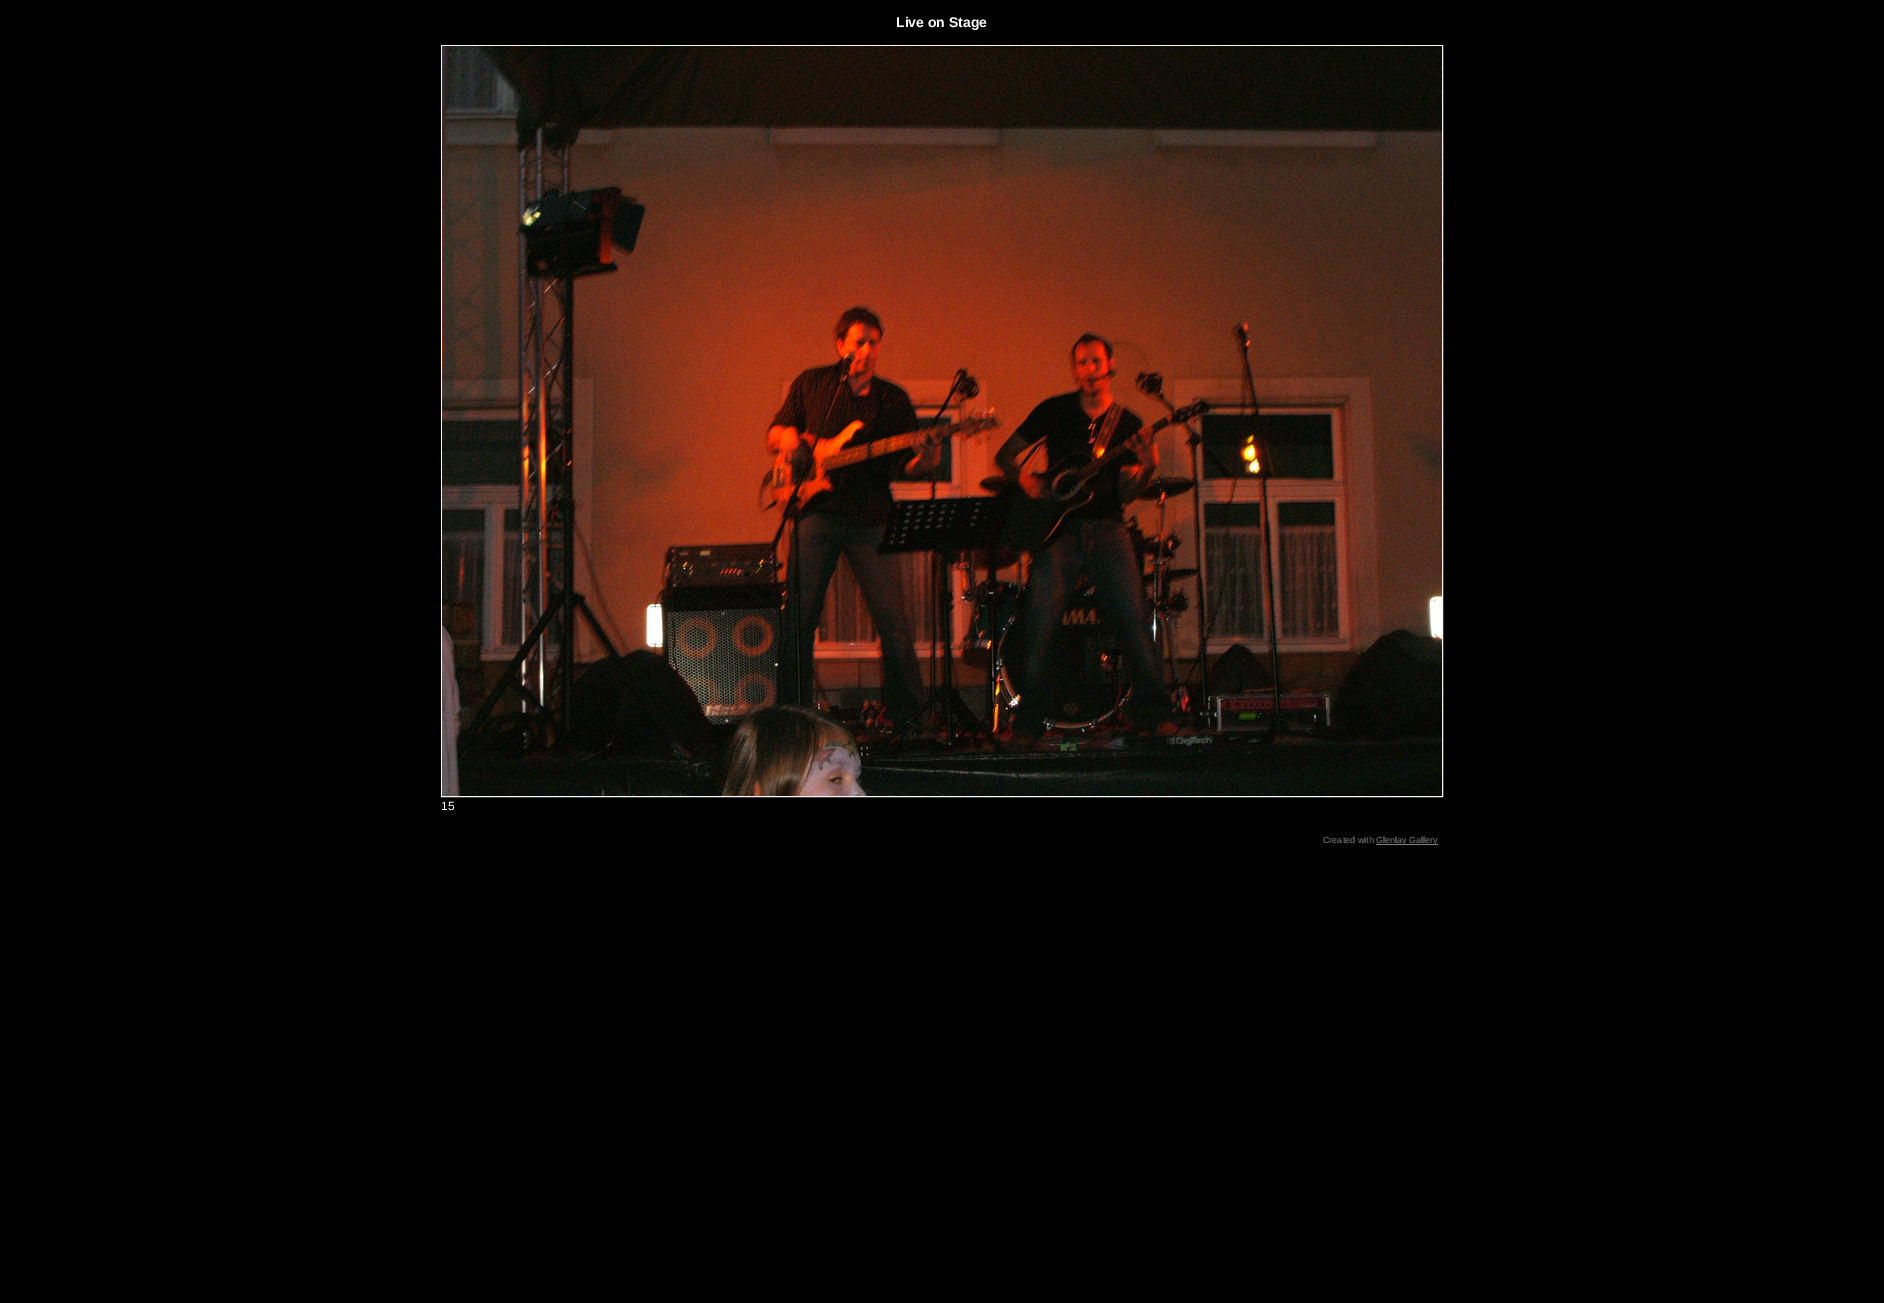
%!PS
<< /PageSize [1884 1303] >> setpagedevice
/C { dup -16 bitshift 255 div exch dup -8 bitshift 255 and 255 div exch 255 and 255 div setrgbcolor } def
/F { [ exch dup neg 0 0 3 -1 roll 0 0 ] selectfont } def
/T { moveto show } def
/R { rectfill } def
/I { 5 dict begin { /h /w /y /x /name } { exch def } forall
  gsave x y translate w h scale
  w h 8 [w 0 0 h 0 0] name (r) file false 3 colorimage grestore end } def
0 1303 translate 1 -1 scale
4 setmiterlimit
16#000000 C
0 0 1884 1303 R
/LiberationSans-Bold 14 F
16#FFFFFF C
(Live on Stage) 896 27 T
16#F5F5F5 C
441.5 45.5 1001 751 rectstroke
(1.rgb) 442 46 1000 750 I
/LiberationSans-Regular 12 F
16#FFFFFF C
(15) 441 810 T
/LiberationSans-Regular 9 F
16#808080 C
(Created with) 1323 843 T
1376 844 62 1 R
(Glenlay Gallery) 1376 843 T
showpage
